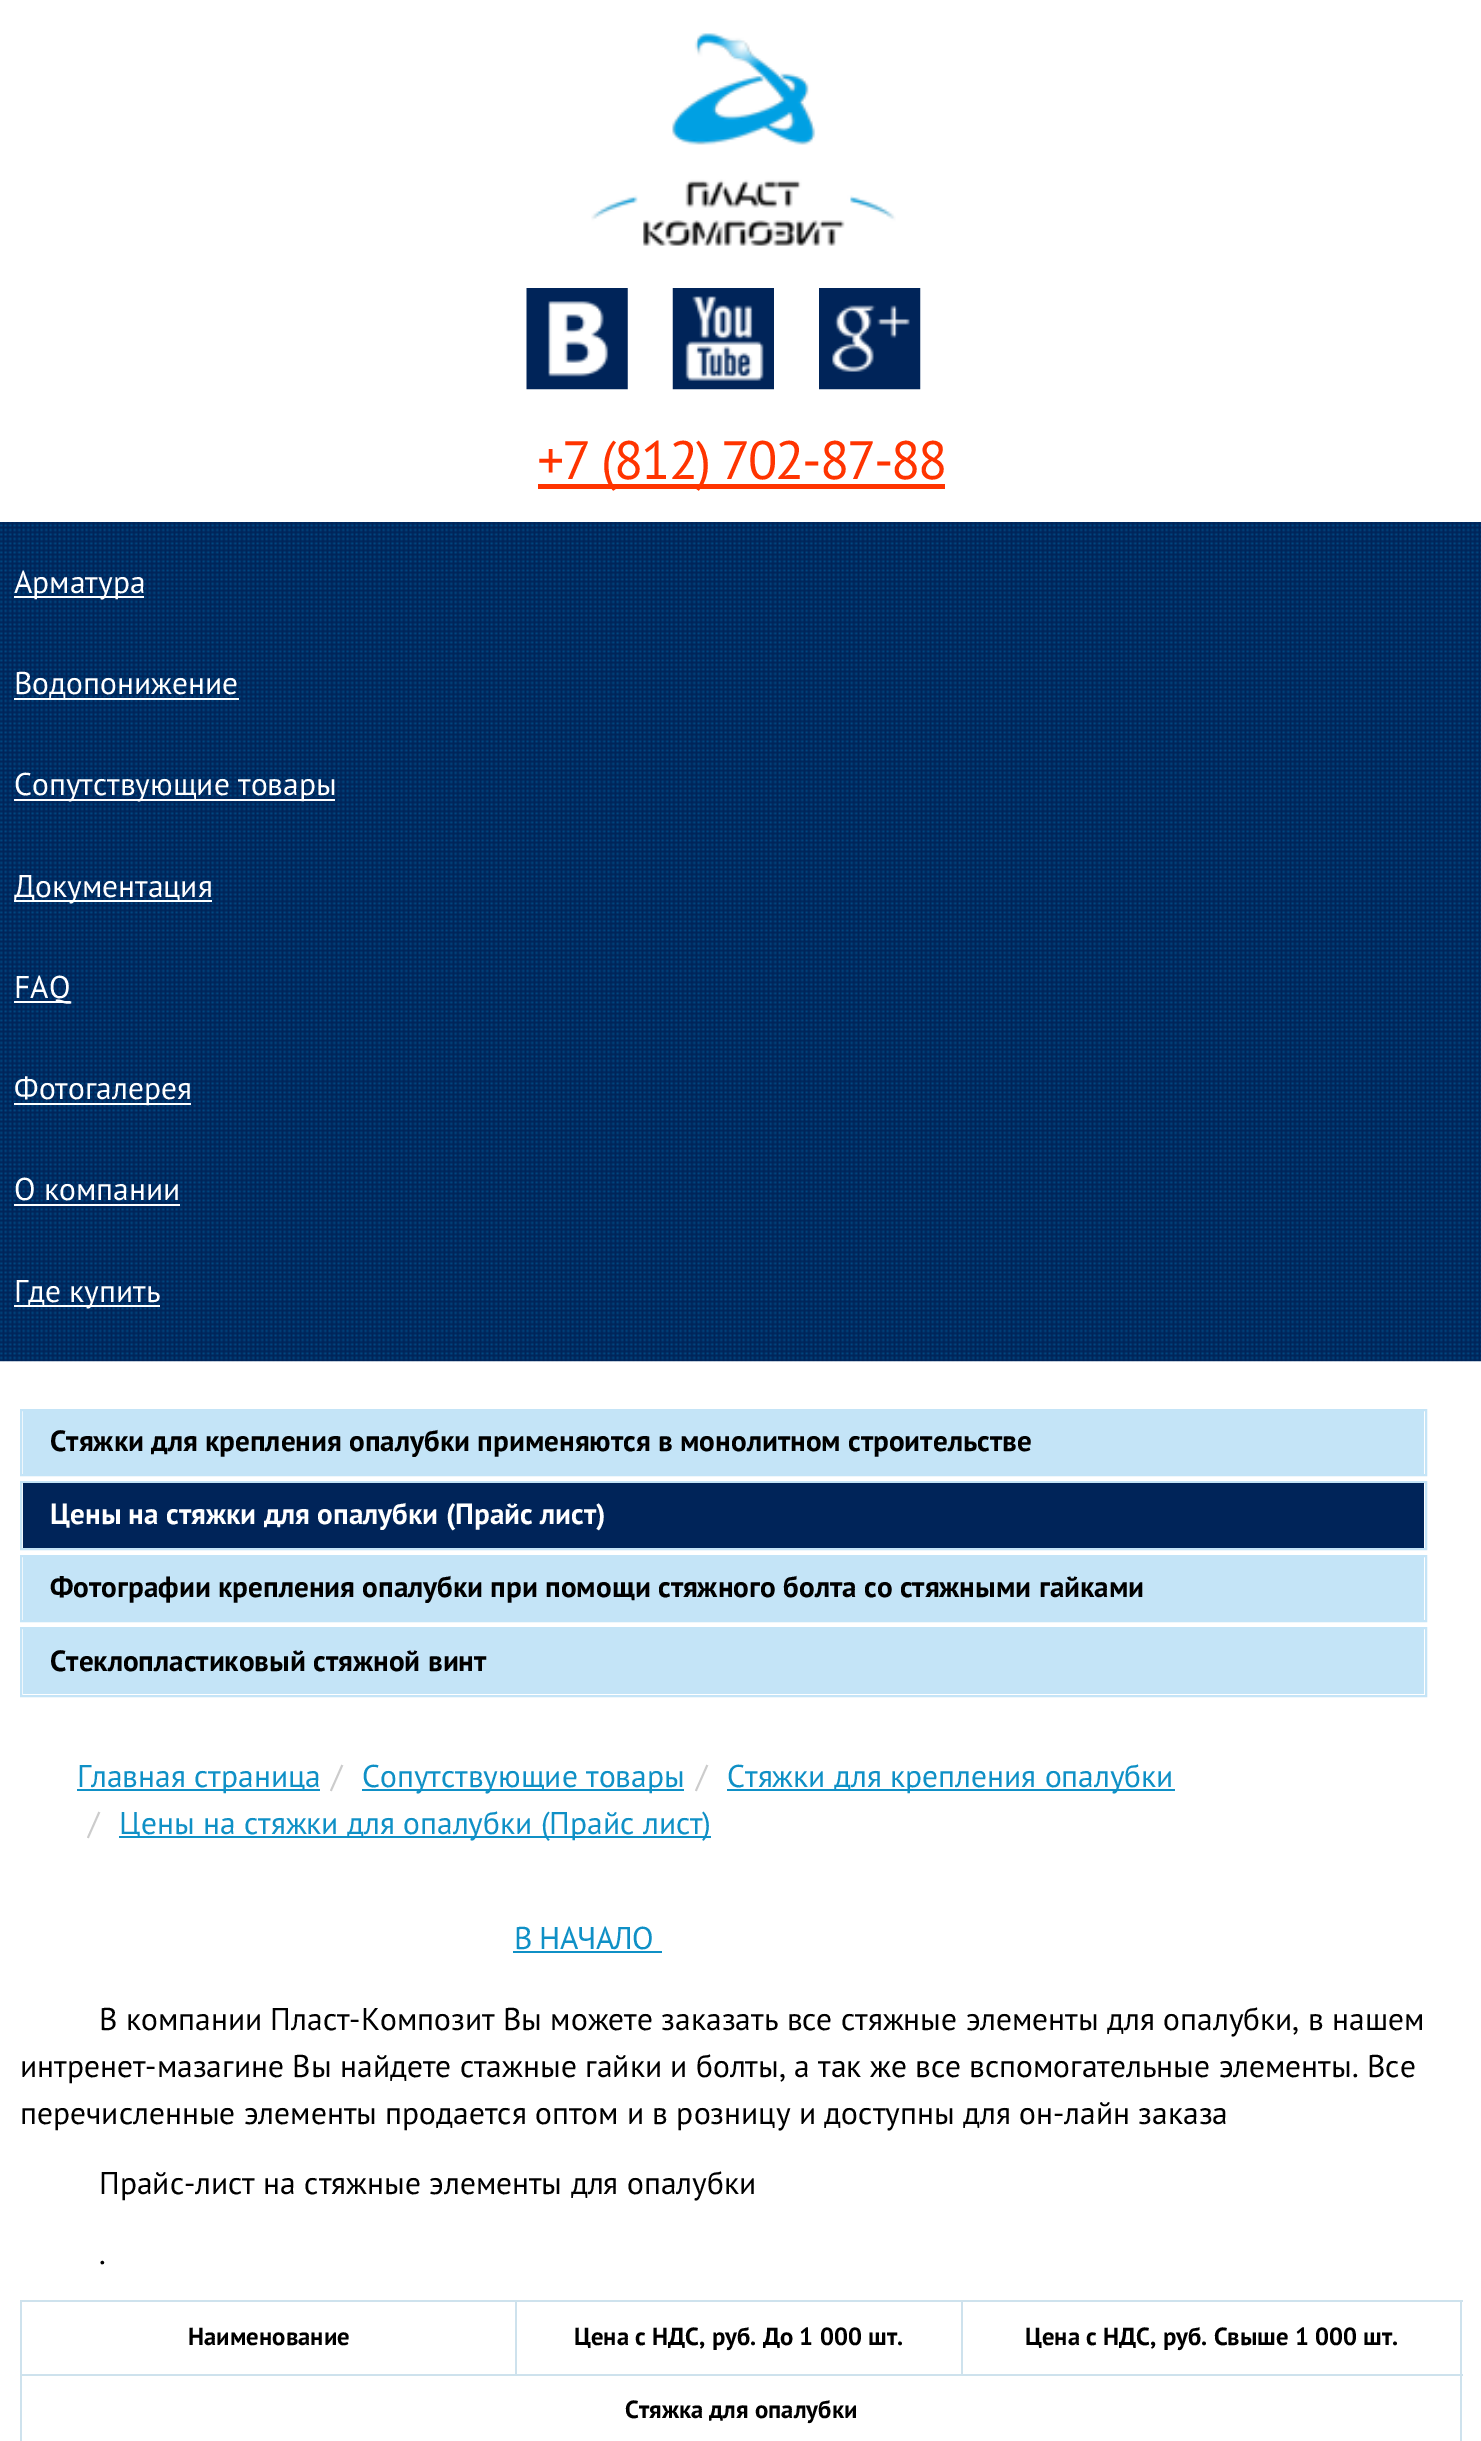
%!PS
<< /PageSize [1481 2441] >> setpagedevice
/m/moveto load def
/w/setlinewidth load def
/C { dup -16 bitshift 255 div exch dup -8 bitshift 255 and 255 div exch 255 and 255 div setrgbcolor } def
/F { [ exch dup neg 0 0 3 -1 roll 0 0 ] selectfont } def
/T { moveto show } def
/R { rectfill } def
/I { 5 dict begin { /h /w /y /x /name } { exch def } forall
  gsave x y translate w h scale
  w h 8 [w 0 0 h 0 0] name (r) file false 3 colorimage grestore end } def
0 2441 translate 1 -1 scale
4 setmiterlimit
16#FFFFFF C
0 0 1481 2441 R
(1.rgb) 591 33 305 213 I
(2.rgb) 526 288 102 102 I
(3.rgb) 672 288 102 102 I
(4.rgb) 819 288 102 102 I
16#FF3400 C
538 484 407 5 R
/PTSans-Regular 54 F
537 479 m -2.25 0 (+7 \(812\) 702-87-88) ashow
(5.rgb) 0 522 1481 840 I
16#FFFFFF C
14 596 130 2 R
/PTSans-Regular 31.5 F
(Арматура) 14 593 T
(Водопонижение) 14 694 T
14 698 225 2 R
14 799 321 2 R
(Сопутствующие товары) 14 795 T
14 900 198 2 R
(Документация) 14 897 T
14 1001 56 2 R
(FAQ) 14 998 T
14 1103 177 2 R
(Фотогалерея) 14 1099 T
(О компании) 14 1200 T
14 1204 166 2 R
14 1305 146 2 R
(Где купить) 14 1302 T
16#C4E4F7 C
2 w
21 1410 1405 65 rectstroke
23 1411 1401 63 R
/PTSans-Bold 29.25 F
16#000000 C
(Стяжки для крепления опалубки применяются в монолитном строительстве) 50 1451 T
16#C4E4F7 C
21 1482 1405 67 rectstroke
16#002459 C
23 1483 1401 65 R
16#FFFFFF C
(Цены на стяжки для опалубки \(Прайс лист\)) 50 1524 T
16#C4E4F7 C
21 1556 1405 65 rectstroke
23 1557 1401 63 R
16#000000 C
(Фотографии крепления опалубки при помощи стяжного болта со стяжными гайками) 50 1597 T
16#C4E4F7 C
21 1628 1405 68 rectstroke
23 1629 1401 65 R
16#000000 C
(Стеклопластиковый стяжной винт) 50 1671 T
16#0F90C6 C
77 1789 243 2 R
/PTSans-Regular 31.5 F
(Главная страница) 77 1787 T
16#CCCCCC C
(/) 331 1787 T
16#0F90C6 C
362 1789 322 2 R
(Сопутствующие товары) 362 1787 T
16#CCCCCC C
(/) 696 1787 T
16#0F90C6 C
727 1789 448 2 R
(Стяжки для крепления опалубки) 727 1787 T
16#CCCCCC C
(/) 88 1834 T
16#0F90C6 C
119 1836 592 2 R
(Цены на стяжки для опалубки \(Прайс лист\)) 119 1834 T
514 1949 m -.75 0 (В НАЧАЛО) ashow
513 1951 149 2 R
16#000000 C
(В компании Пласт-Композит Вы можете заказать все стяжные элементы для опалубки, в нашем) 99 2030 T
(интренет-мазагине Вы найдете стажные гайки и болты, а так же все вспомогательные элементы. Все) 20 2077 T
(перечисленные элементы продается оптом и в розницу и доступны для он-лайн заказа) 20 2124 T
(Прайс-лист на стяжные элементы для опалубки) 99 2194 T
(.) 99 2264 T
16#CEE2ED C
20 2300 1443 2 R
1460 2300 2 141 R
20 2300 2 141 R
/PTSans-Bold 24.75 F
16#000000 C
(Наименование) 188 2345 T
16#CEE2ED C
20 2374 1443 2 R
515 2300 2 76 R
16#000000 C
(Цена с НДС, руб. До 1 000 шт.) 574 2345 T
16#CEE2ED C
961 2300 2 76 R
16#000000 C
(Цена с НДС, руб. Свыше 1 000 шт.) 1025 2345 T
(Стяжка для опалубки) 625 2418 T
showpage
